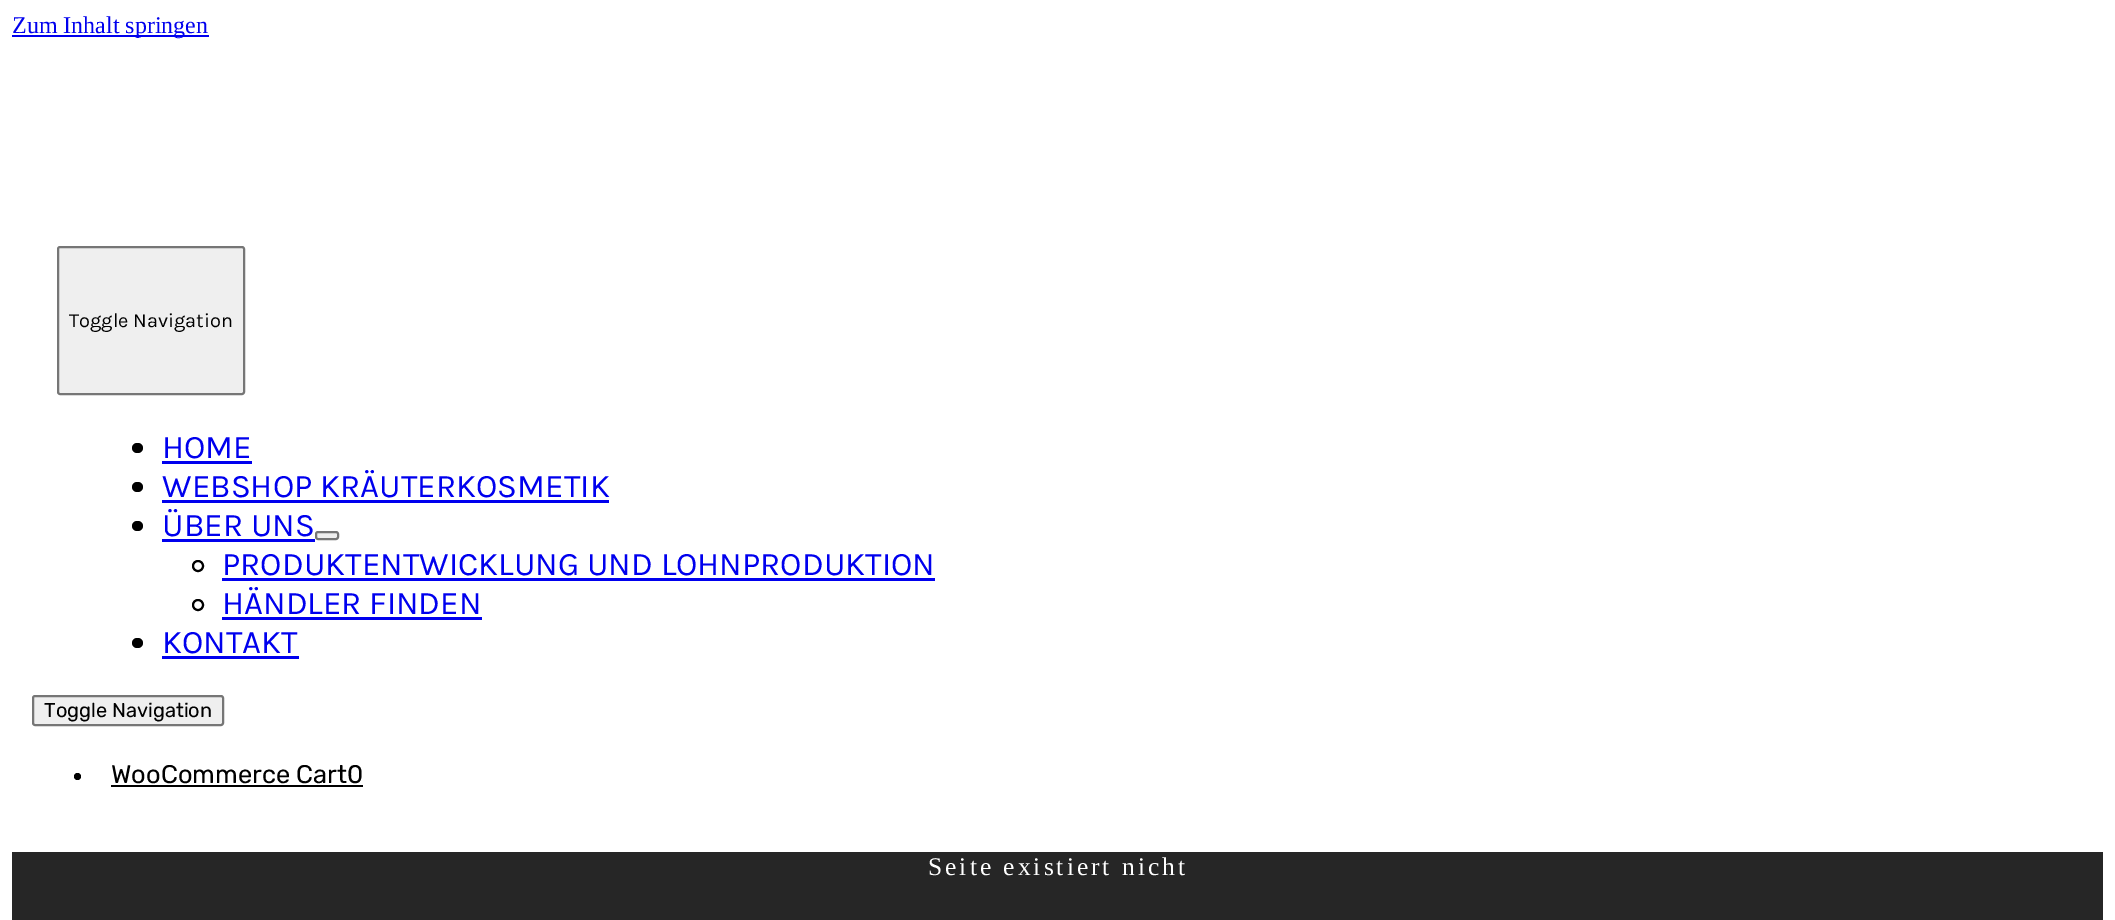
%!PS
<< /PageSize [2115 920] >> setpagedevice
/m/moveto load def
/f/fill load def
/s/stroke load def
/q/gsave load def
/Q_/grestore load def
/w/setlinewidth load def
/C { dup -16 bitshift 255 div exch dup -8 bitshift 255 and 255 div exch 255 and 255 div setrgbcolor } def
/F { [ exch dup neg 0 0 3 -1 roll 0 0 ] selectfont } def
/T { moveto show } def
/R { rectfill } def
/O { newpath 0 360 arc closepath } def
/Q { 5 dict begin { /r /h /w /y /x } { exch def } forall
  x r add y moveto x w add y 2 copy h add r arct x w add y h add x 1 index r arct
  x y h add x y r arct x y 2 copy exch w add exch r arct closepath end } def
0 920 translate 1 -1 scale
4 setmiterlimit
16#FFFFFF C
0 0 2115 920 R
16#0000EE C
12 35 197 2 R
/LiberationSerif-Regular 24 F
(Zum Inhalt springen) 12 33 T
16#EFEFEF C
58 247 186 147 2 Q q f Q_
16#767676 C
2 w
s
/Karla-Regular 20 F
16#000000 C
(Toggle Navigation) 69 327 T
132 443 11 10 5 Q f
/Karla-Regular 33 F
16#0000EE C
(HOME) 162 458 T
162 461 90 3 R
16#000000 C
132 482 11 10 5 Q f
16#0000EE C
(WEBSHOP KRÄUTERKOSMETIK) 162 497 T
162 500 447 3 R
16#000000 C
132 521 11 10 5 Q f
16#0000EE C
(ÜBER UNS) 162 536 T
162 539 153 3 R
16#EFEFEF C
316 532 22 7 2 Q q f Q_
16#767676 C
s
16#000000 C
198 566 5 O s
16#0000EE C
(PRODUKTENTWICKLUNG UND LOHNPRODUKTION) 222 575 T
222 578 713 3 R
16#000000 C
198 605 5 O s
16#0000EE C
(HÄNDLER FINDEN) 222 614 T
222 617 260 3 R
16#000000 C
132 638 11 10 5 Q f
16#0000EE C
(KONTAKT) 162 653 T
162 656 137 3 R
16#EFEFEF C
33 696 190 29 2 Q q f Q_
16#767676 C
s
/Rubik-Regular 20 F
16#000000 C
(Toggle Navigation) 44 717 T
77.5 776.5 3.5 O f
/Rubik-Regular 25.5 F
(WooCommerce Cart0) 111 783 T
111 785 252 2 R
16#262626 C
12 852 2091 68 R
/LiberationSerif-Regular 25.5 F
16#FFFFFF C
928 875 m 3 0 (Seite existiert nicht) ashow
showpage
